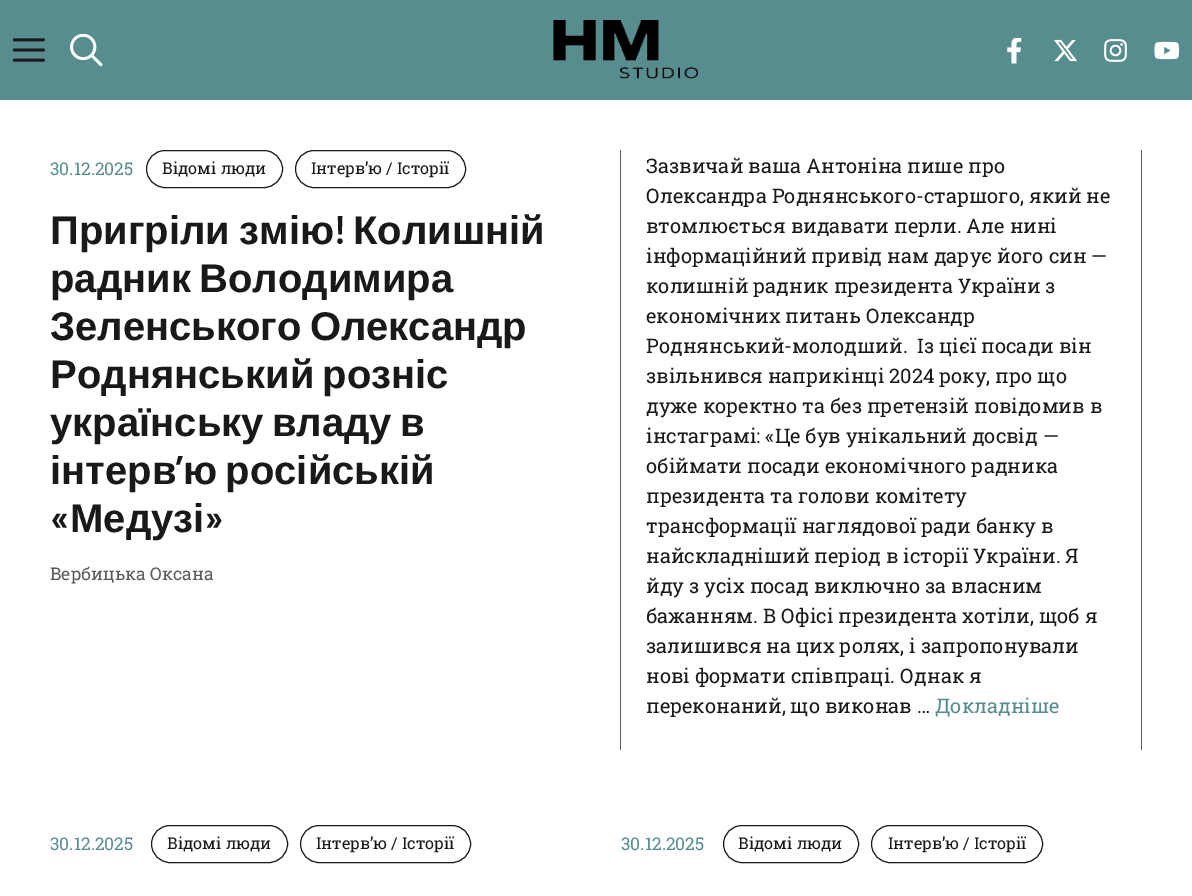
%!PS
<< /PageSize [1192 896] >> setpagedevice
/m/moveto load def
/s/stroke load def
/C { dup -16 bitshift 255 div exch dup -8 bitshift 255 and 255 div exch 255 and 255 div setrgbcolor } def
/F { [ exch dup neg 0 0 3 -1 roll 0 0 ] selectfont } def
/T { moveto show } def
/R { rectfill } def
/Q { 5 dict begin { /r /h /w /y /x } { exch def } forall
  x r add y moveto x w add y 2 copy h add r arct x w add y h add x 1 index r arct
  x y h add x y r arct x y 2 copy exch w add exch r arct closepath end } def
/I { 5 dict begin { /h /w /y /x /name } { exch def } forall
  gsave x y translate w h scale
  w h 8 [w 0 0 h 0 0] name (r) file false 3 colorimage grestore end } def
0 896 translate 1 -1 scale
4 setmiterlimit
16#FFFFFF C
0 0 1192 896 R
16#578D8F C
0 0 1192 100 R
(1.rgb) 13 38 32 24 I
(2.rgb) 70 34 33 32 I
(3.rgb) 553 20 146 59 I
(4.rgb) 1007 38 15 26 I
(5.rgb) 1054 39 23 23 I
(6.rgb) 1104 39 23 23 I
(7.rgb) 1154 41 26 19 I
/RobotoSlab-Regular 17.5 F
(30.12.2025) 50 175 T
16#191919 C
146.5 150.5 136 37 18.5 Q s
/RobotoSlab-Regular 16.25 F
(Відомі люди) 162 174 T
295.5 150.5 170 37 18.5 Q s
(Інтерв’ю / Історії) 311 174 T
/LiberationSans-Bold 40 F
50 244 m -2 0 32 (Пригріли змію) widthshow
/BarlowSemiCondensed-SemiBold 40 F
(!) 334 244 T
/LiberationSans-Bold 40 F
(Колишній) 353 244 T
50 292 m -3 0 32 (радник Володимира) widthshow
50 340 m -3 0 32 (Зеленського Олександр) widthshow
50 388 m -3 0 32 (Роднянський розніс) widthshow
50 436 m -3 0 32 (українську владу в) widthshow
(інтерв) 50 484 T
/BarlowSemiCondensed-SemiBold 40 F
(’) 176 484 T
/LiberationSans-Bold 40 F
183 484 m -3 0 32 (ю російській) widthshow
/BarlowSemiCondensed-SemiBold 40 F
(«) 50 532 T
/LiberationSans-Bold 40 F
(Медузі) 70 532 T
/BarlowSemiCondensed-SemiBold 40 F
(») 204 532 T
/RobotoSlab-Regular 17.5 F
16#5B5B5B C
(Вербицька Оксана) 50 580 T
1141 150 1 600 R
620 150 1 600 R
/RobotoSlab-Regular 20 F
16#191919 C
(Зазвичай ваша Антоніна пише про) 646 173 T
(Олександра Роднянського-старшого, який не) 646 203 T
(втомлюється видавати перли. Але нині) 646 233 T
(інформаційний привід нам дарує його син —) 646 263 T
(колишній радник президента України з) 646 293 T
(економічних питань Олександр) 646 323 T
(Роднянський-молодший.  Із цієї посади він) 646 353 T
(звільнився наприкінці 2024 року, про що) 646 383 T
(дуже коректно та без претензій повідомив в) 646 413 T
(інстаграмі: «Це був унікальний досвід —) 646 443 T
(обіймати посади економічного радника) 646 473 T
(президента та голови комітету) 646 503 T
(трансформації наглядової ради банку в) 646 533 T
(найскладніший період в історії України. Я) 646 563 T
(йду з усіх посад виключно за власним) 646 593 T
(бажанням. В Офісі президента хотіли, щоб я) 646 623 T
(залишився на цих ролях, і запропонували) 646 653 T
(нові формати співпраці. Однак я) 646 683 T
(переконаний, що виконав …) 646 713 T
16#578D8F C
(Докладніше) 935 713 T
/RobotoSlab-Regular 17.5 F
(30.12.2025) 50 850 T
16#191919 C
151.5 825.5 136 37 18.5 Q s
/RobotoSlab-Regular 16.25 F
(Відомі люди) 167 849 T
300.5 825.5 170 37 18.5 Q s
(Інтерв’ю / Історії) 316 849 T
/RobotoSlab-Regular 17.5 F
16#578D8F C
(30.12.2025) 621 850 T
16#191919 C
723.5 825.5 135 37 18.5 Q s
/RobotoSlab-Regular 16.25 F
(Відомі люди) 738 849 T
871.5 825.5 171 37 18.5 Q s
(Інтерв’ю / Історії) 888 849 T
showpage
